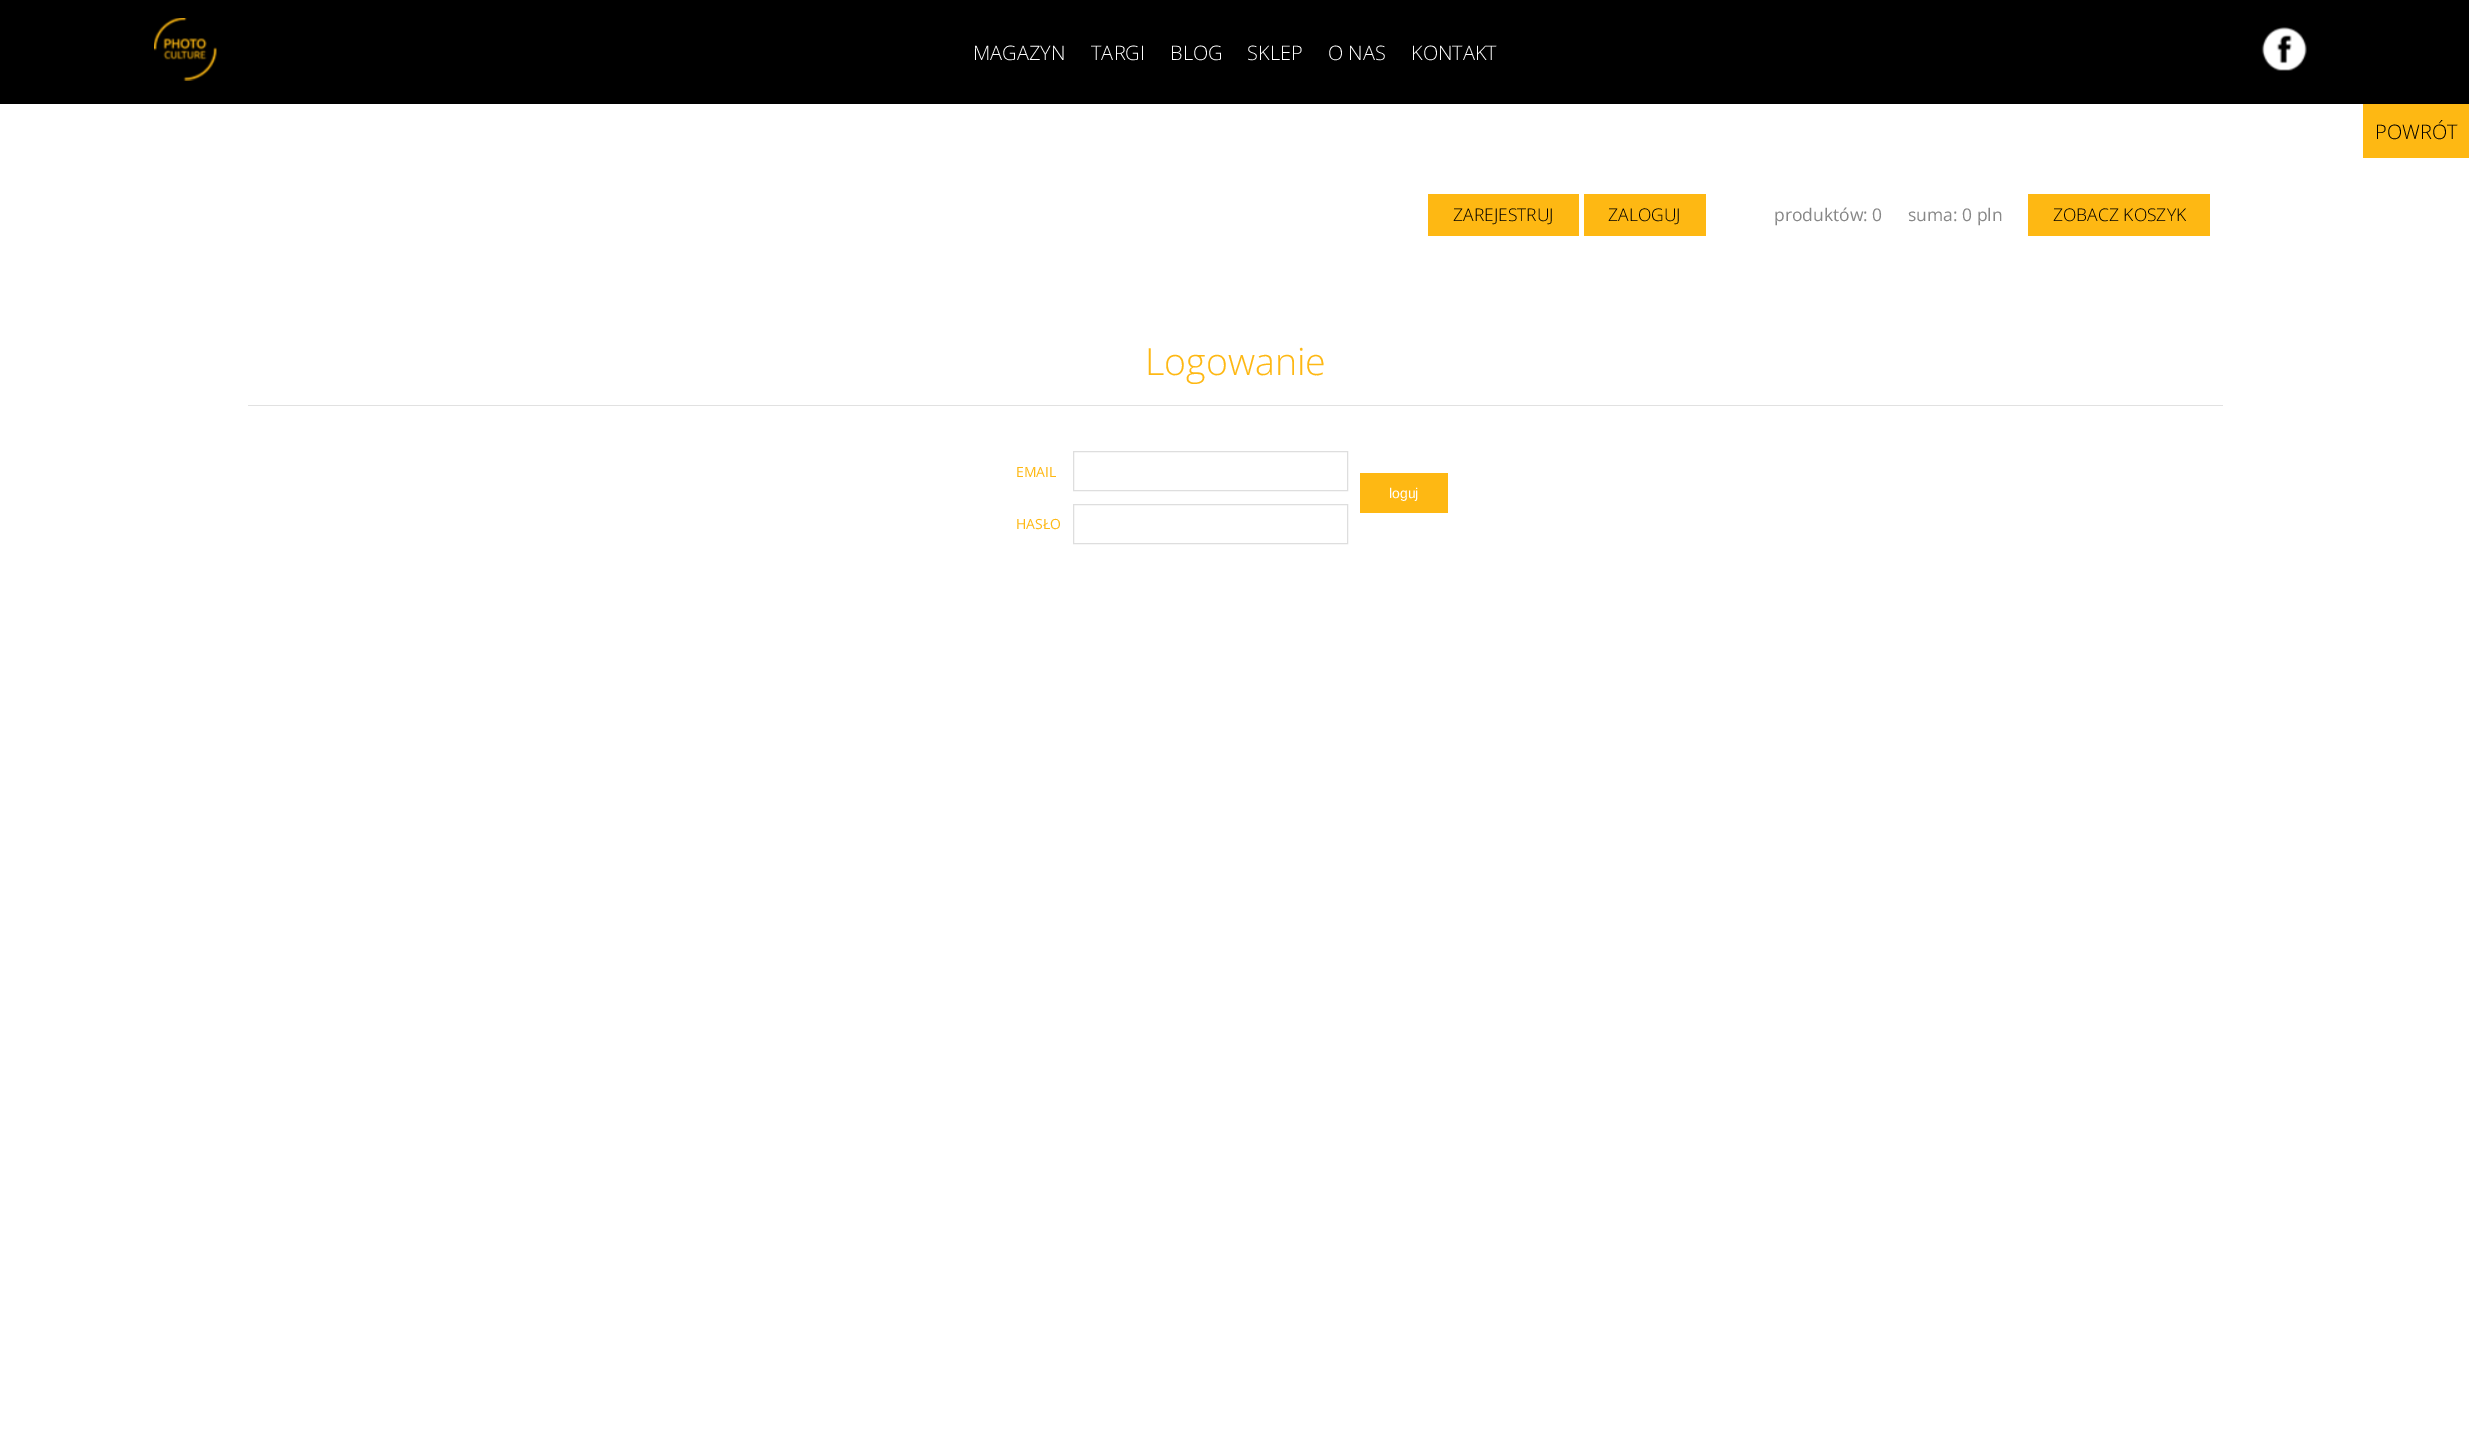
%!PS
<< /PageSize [2469 1439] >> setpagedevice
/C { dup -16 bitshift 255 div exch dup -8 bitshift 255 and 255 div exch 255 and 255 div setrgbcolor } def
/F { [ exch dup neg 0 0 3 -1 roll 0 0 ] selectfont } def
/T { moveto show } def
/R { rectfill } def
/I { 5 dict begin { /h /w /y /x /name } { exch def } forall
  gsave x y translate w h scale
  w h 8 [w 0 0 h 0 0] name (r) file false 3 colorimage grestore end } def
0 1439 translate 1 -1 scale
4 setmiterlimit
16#FFFFFF C
0 0 2469 1439 R
16#000000 C
0 0 2469 104 R
(1.rgb) 154 18 63 63 I
/OpenSans-Light 20 F
16#FFFFFF C
(MAGAZYN) 973 60 T
(TARGI) 1091 60 T
(BLOG) 1170 60 T
(SKLEP) 1247 60 T
(O NAS) 1328 60 T
(KONTAKT) 1411 60 T
(2.rgb) 2261 27 46 44 I
16#FEB813 C
2363 104 106 54 R
16#000000 C
(POWRÓT) 2375 139 T
16#FEB813 C
1428 194 151 42 R
/OpenSans-Light 17.5 F
16#000000 C
(ZAREJESTRUJ) 1453 221 T
16#FEB813 C
1584 194 122 42 R
16#000000 C
(ZALOGUJ) 1608 221 T
/OpenSans-Regular 17.5 F
16#878787 C
(produktów: 0) 1774 221 T
(suma: 0 pln) 1908 221 T
16#FEB813 C
2028 194 182 42 R
/OpenSans-Light 17.5 F
16#000000 C
(ZOBACZ KOSZYK) 2053 221 T
16#E1E1E1 C
248 405 1975 1 R
/OpenSans-Light 37.5 F
16#FEB813 C
(Logowanie) 1145 375 T
/OpenSans-Regular 14 F
(EMAIL) 1016 477 T
16#DEDEDE C
1073.5 451.5 274 39 rectstroke
16#FEB813 C
(HASŁO) 1016 529 T
16#DEDEDE C
1073.5 504.5 274 39 rectstroke
16#FEB813 C
1360 473 88 40 R
/LiberationSans-Regular 14 F
16#FFFFFF C
(loguj) 1389 498 T
showpage
